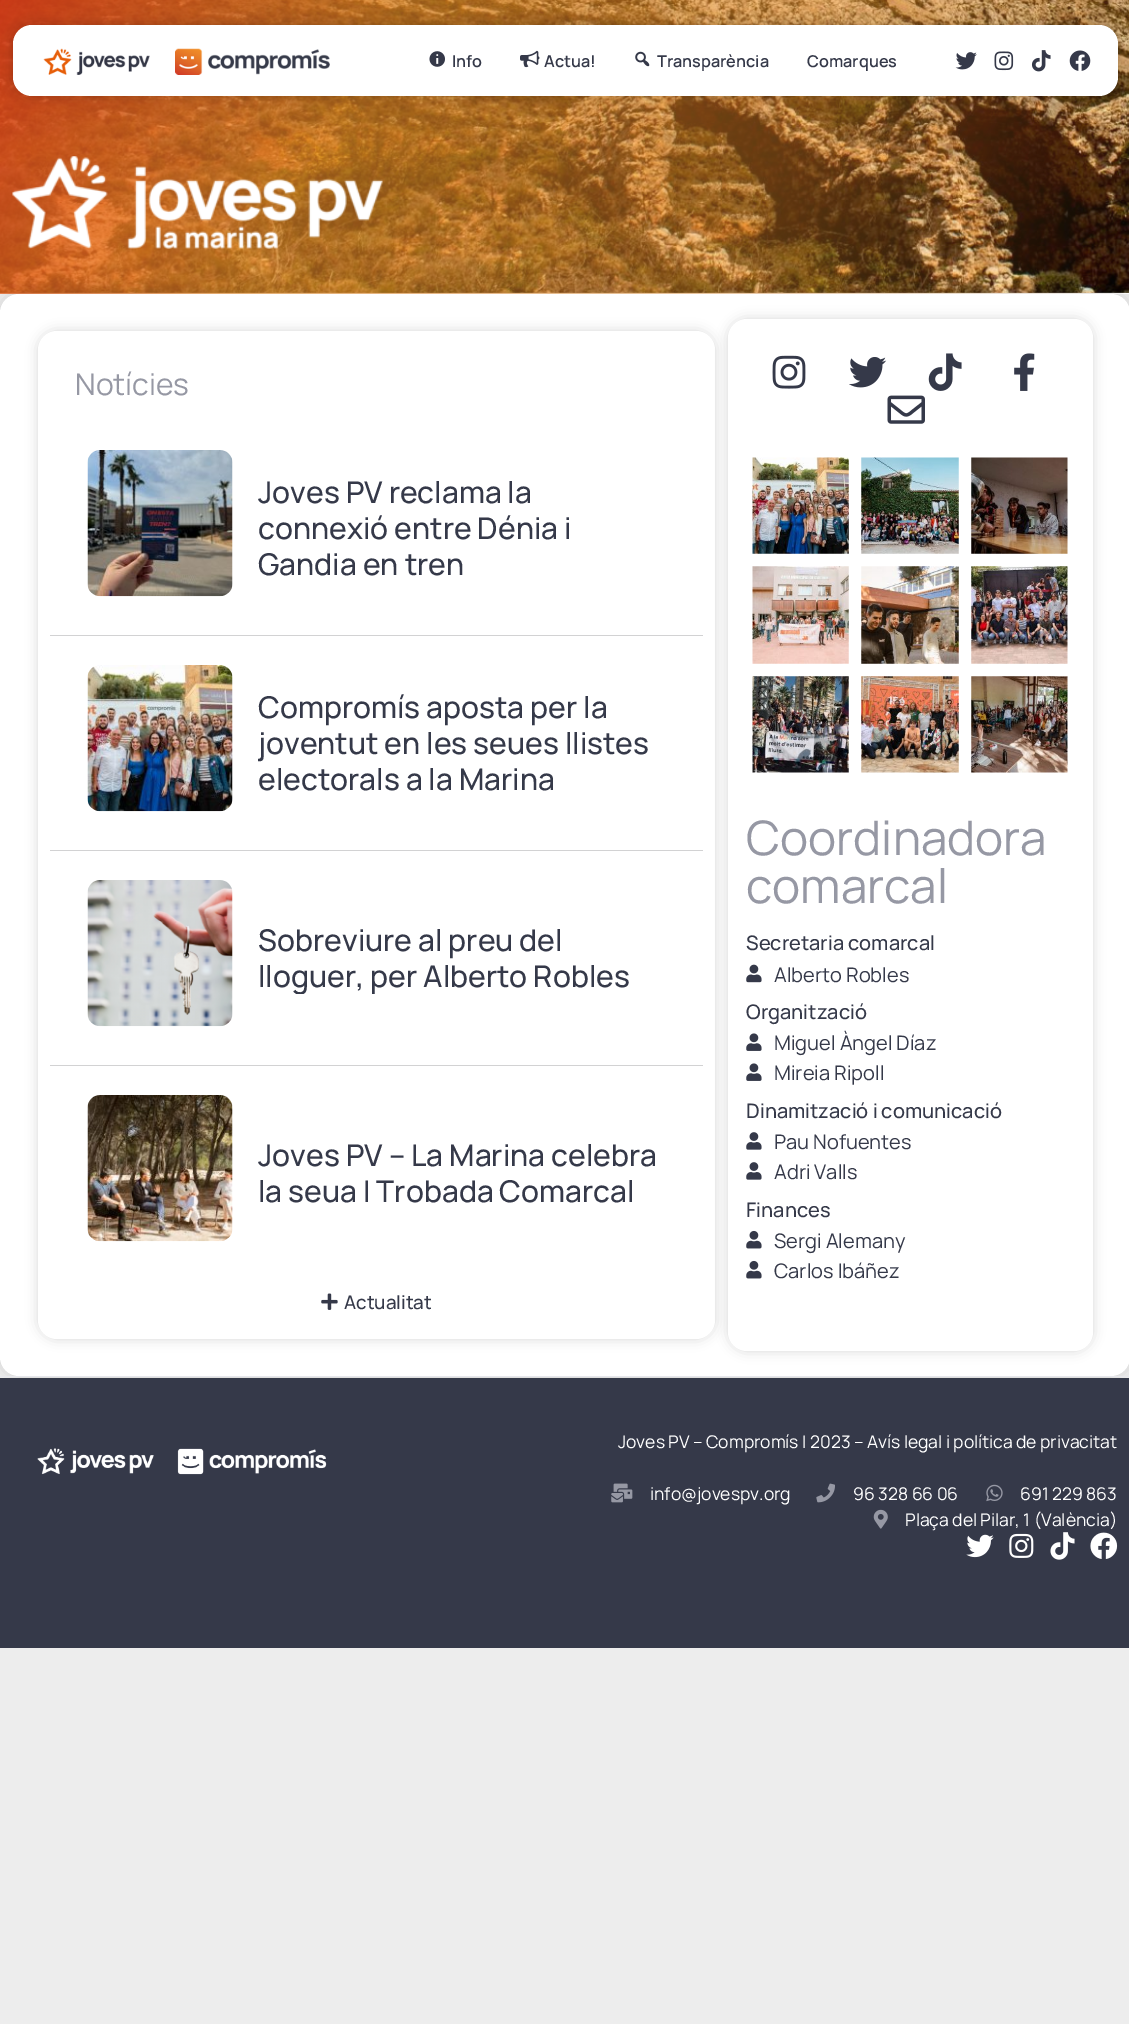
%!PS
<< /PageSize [1129 2024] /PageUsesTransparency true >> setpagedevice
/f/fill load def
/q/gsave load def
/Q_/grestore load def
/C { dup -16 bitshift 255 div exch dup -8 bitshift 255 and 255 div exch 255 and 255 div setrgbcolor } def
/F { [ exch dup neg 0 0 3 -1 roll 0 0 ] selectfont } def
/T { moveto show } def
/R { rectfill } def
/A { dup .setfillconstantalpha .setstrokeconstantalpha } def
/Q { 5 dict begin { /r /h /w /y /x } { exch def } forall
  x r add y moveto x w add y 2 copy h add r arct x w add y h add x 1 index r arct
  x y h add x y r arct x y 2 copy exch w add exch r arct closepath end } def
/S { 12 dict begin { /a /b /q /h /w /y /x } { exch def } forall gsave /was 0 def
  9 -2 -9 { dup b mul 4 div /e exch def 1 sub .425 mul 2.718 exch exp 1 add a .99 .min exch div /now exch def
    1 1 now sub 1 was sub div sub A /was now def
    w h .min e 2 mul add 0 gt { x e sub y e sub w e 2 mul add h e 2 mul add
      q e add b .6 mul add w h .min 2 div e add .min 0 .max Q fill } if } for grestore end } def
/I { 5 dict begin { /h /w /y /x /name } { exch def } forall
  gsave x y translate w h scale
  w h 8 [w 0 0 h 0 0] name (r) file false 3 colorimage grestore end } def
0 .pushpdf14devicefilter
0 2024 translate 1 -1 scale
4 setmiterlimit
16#EDEDED C
0 0 1129 2024 R
(10.rgb) 0 0 1129 294 I
16#000000 C
13 25 1105 71 19 6 .2 S
16#FFFFFF C
13 25 1105 71 19 Q f
(1.rgb) 43 48 107 27 I
(2.rgb) 175 48 155 27 I
(3.rgb) 429 51 16 16 I
/Manrope-SemiBold 16.25 F
16#353949 C
(Info) 452 67 T
(4.rgb) 520 50 20 18 I
(Actua!) 544 67 T
(5.rgb) 635 51 15 16 I
(Transparència) 657 67 T
(Comarques) 807 67 T
(6.rgb) 955 52 22 18 I
(7.rgb) 994 51 20 20 I
(8.rgb) 1031 50 20 22 I
(9.rgb) 1069 50 22 21 I
(11.rgb) 12 156 371 93 I
16#000000 C
0 294 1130 1082 19 6 .15 S
16#FFFFFF C
0 294 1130 1082 19 Q f
16#000000 C
38 331 677 1008 19 6 .15 S
16#FFFFFF C
38 331 677 1008 19 Q f
/Manrope-Regular 30 F
16#9698A4 C
(Notícies) 75 395 T
(12.rgb) 87 450 146 147 I
/Manrope-Medium 30 F
16#353949 C
(Joves PV reclama la) 258 503 T
(connexió entre Dénia i) 258 539 T
(Gandia en tren) 258 575 T
16#D2D2D3 C
50 635 653 1 R
(13.rgb) 87 665 146 147 I
16#353949 C
(Compromís aposta per la) 258 718 T
q
258 689 407 109 rectclip
(joventut en les seues llistes) 258 754 T
Q_
(electorals a la Marina) 258 790 T
16#D2D2D3 C
50 850 653 1 R
(14.rgb) 87 880 146 147 I
16#353949 C
(Sobreviure al preu del) 258 951 T
q
258 923 407 71 rectclip
(lloguer, per Alberto Robles) 258 987 T
Q_
16#D2D2D3 C
50 1065 653 1 R
(15.rgb) 87 1095 146 147 I
16#353949 C
(Joves PV – La Marina celebra) 258 1166 T
(la seua I Trobada Comarcal) 258 1202 T
(16.rgb) 321 1293 17 17 I
/Manrope-Medium 18.75 F
(Actualitat) 344 1309 T
16#000000 C
728 319 365 1032 19 6 .15 S
16#FFFFFF C
728 319 365 1032 19 Q f
(17.rgb) 772 355 34 34 I
(18.rgb) 849 357 38 31 I
(19.rgb) 928 353 34 38 I
(20.rgb) 1014 353 21 38 I
(21.rgb) 887 395 38 29 I
(22.rgb) 752 457 97 97 I
(23.rgb) 861 457 98 97 I
(24.rgb) 971 457 97 97 I
(25.rgb) 752 566 97 98 I
(26.rgb) 861 566 98 98 I
(27.rgb) 971 566 97 98 I
(28.rgb) 752 676 97 97 I
(29.rgb) 861 676 98 97 I
(30.rgb) 971 676 97 97 I
/Manrope-Regular 47.5 F
16#9698A4 C
(Coordinadora) 746 855 T
(comarcal) 746 903 T
/Manrope-Medium 20 F
16#353949 C
(Secretaria comarcal) 746 950 T
(31.rgb) 746 964 16 19 I
/Manrope-Regular 20 F
(Alberto Robles) 774 982 T
/Manrope-Medium 20 F
(Organització) 746 1019 T
(32.rgb) 746 1033 16 18 I
/Manrope-Regular 20 F
(Miguel Àngel Díaz) 774 1050 T
(32.rgb) 746 1063 16 18 I
(Mireia Ripoll) 774 1080 T
/Manrope-Medium 20 F
(Dinamització i comunicació) 746 1118 T
(33.rgb) 746 1132 16 18 I
/Manrope-Regular 20 F
(Pau Nofuentes) 774 1149 T
(33.rgb) 746 1162 16 18 I
(Adri Valls) 774 1179 T
/Manrope-Medium 20 F
(Finances) 746 1217 T
(34.rgb) 746 1230 16 19 I
/Manrope-Regular 20 F
(Sergi Alemany) 774 1248 T
(34.rgb) 746 1260 16 19 I
(Carlos Ibáñez) 774 1278 T
0 1378 1129 270 R
16#E6E7EC C
0 1376 1129 1 R
(35.rgb) 37 1448 290 27 I
/Manrope-Regular 17.5 F
16#FFFFFF C
(Joves PV – Compromís | 2023 – Avís legal i política de privacitat) 618 1448 T
(36.rgb) 611 1483 22 20 I
(info@jovespv.org) 650 1500 T
(37.rgb) 816 1483 19 20 I
(96 328 66 06) 853 1500 T
(38.rgb) 986 1484 17 18 I
(691 229 863) 1020 1500 T
(39.rgb) 873 1509 15 20 I
(Plaça del Pilar, 1 \(València\)) 905 1526 T
(40.rgb) 966 1534 28 24 I
(41.rgb) 1009 1533 25 25 I
(42.rgb) 1050 1532 25 28 I
(43.rgb) 1090 1532 28 27 I
.poppdf14devicefilter showpage
